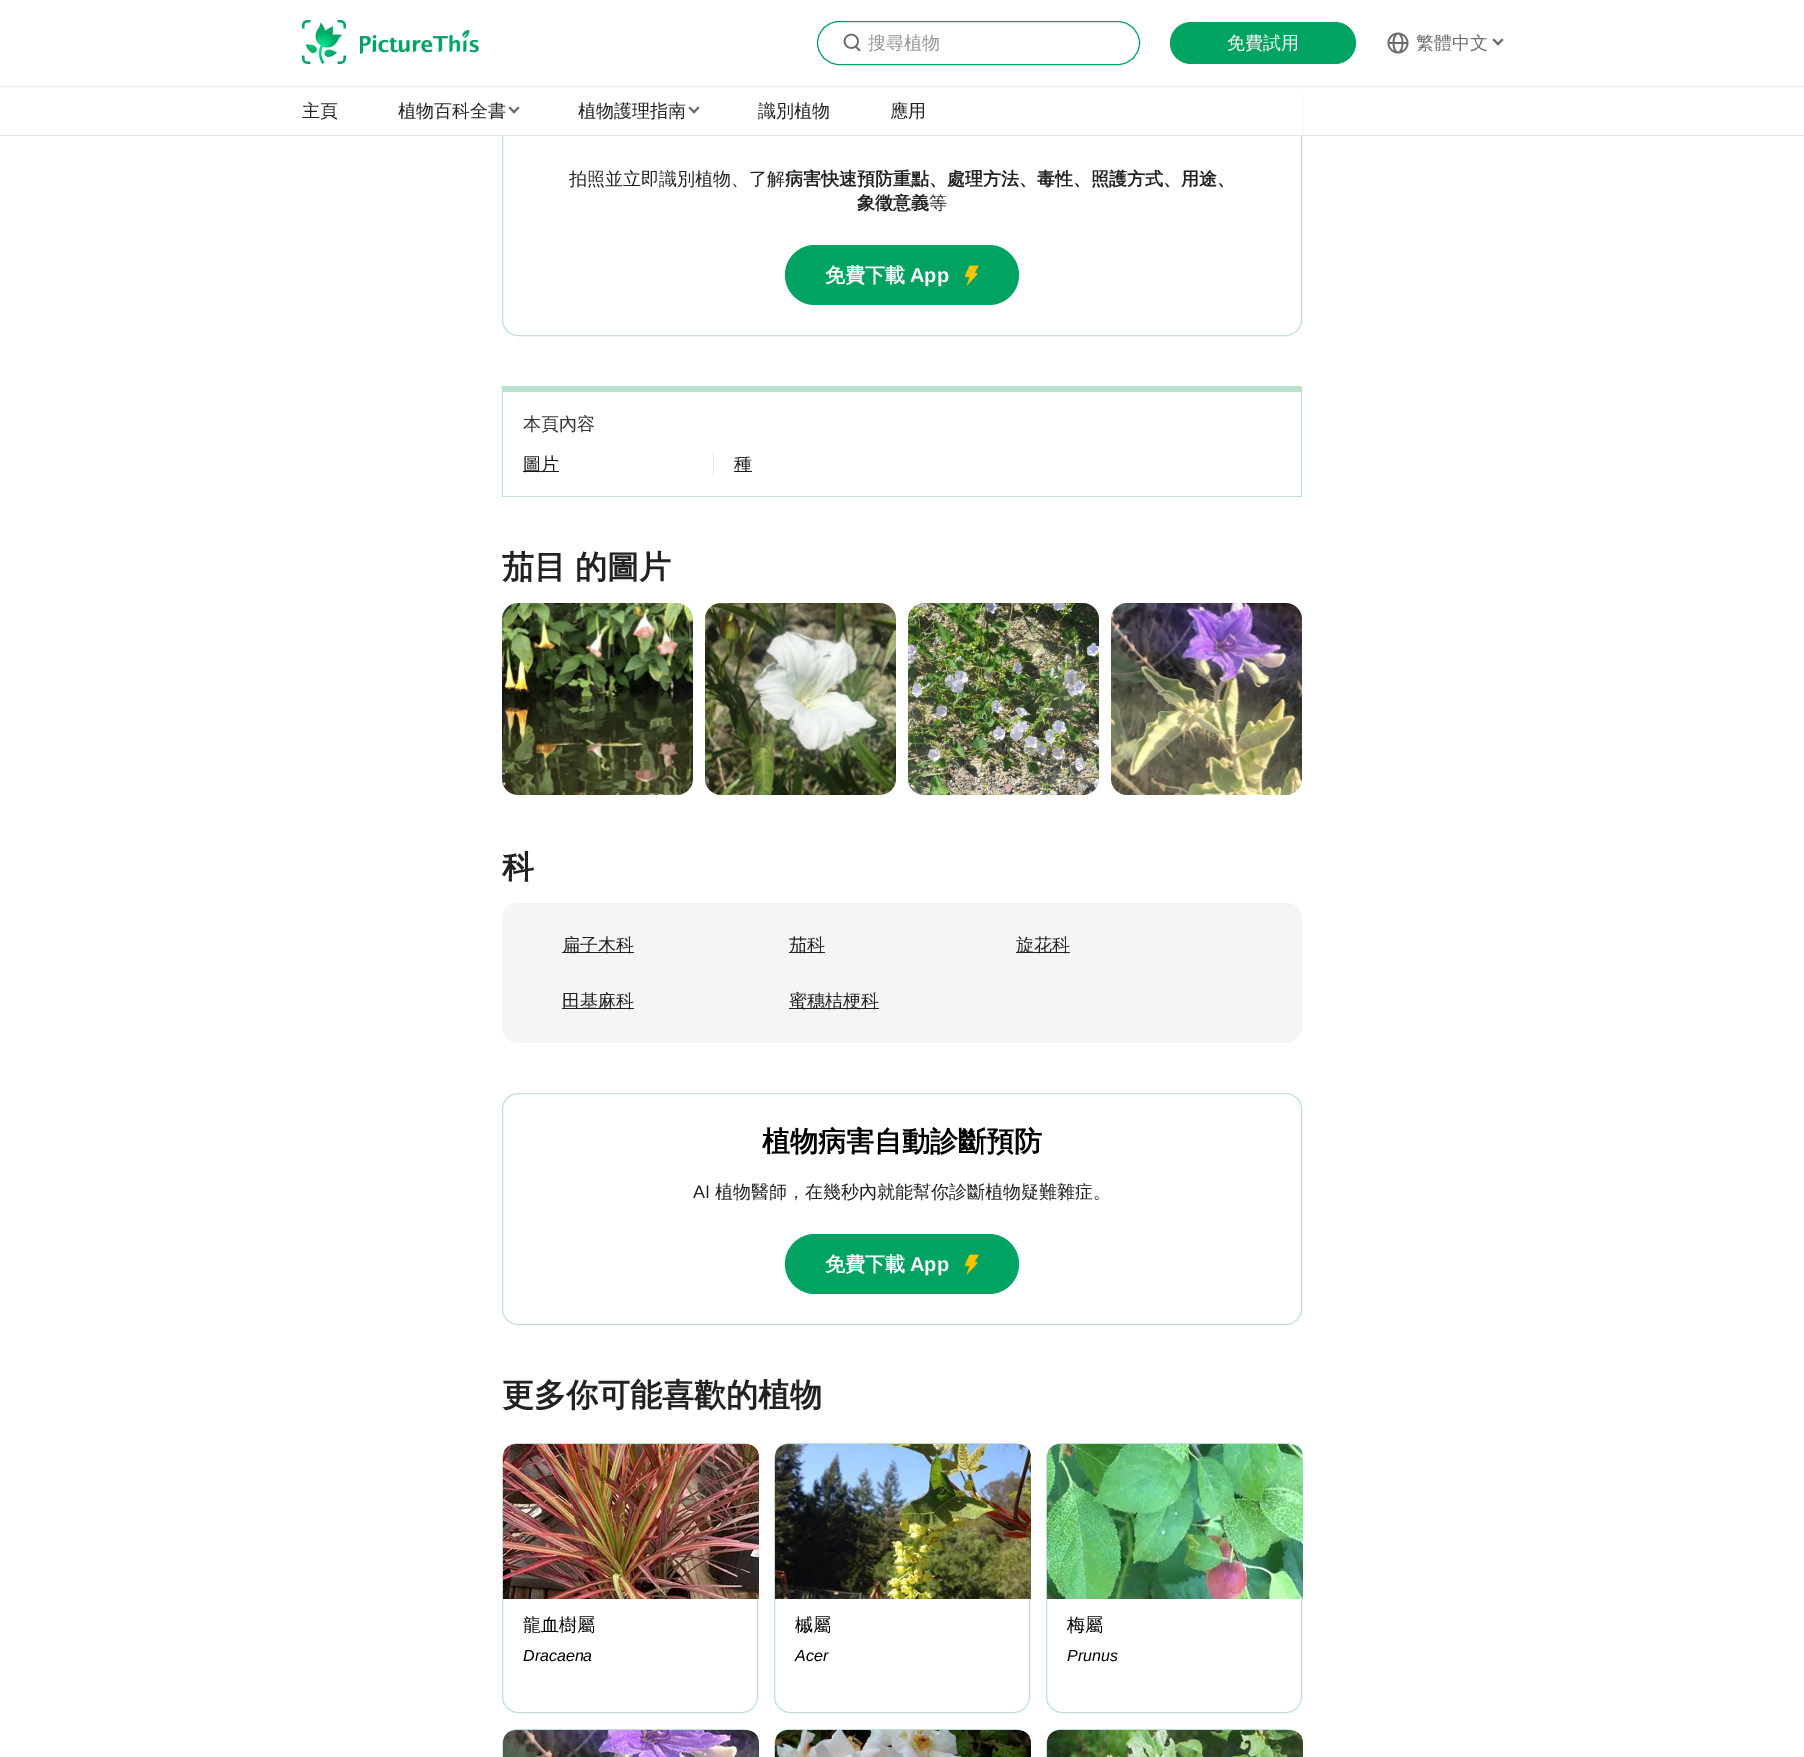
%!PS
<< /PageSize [1804 1757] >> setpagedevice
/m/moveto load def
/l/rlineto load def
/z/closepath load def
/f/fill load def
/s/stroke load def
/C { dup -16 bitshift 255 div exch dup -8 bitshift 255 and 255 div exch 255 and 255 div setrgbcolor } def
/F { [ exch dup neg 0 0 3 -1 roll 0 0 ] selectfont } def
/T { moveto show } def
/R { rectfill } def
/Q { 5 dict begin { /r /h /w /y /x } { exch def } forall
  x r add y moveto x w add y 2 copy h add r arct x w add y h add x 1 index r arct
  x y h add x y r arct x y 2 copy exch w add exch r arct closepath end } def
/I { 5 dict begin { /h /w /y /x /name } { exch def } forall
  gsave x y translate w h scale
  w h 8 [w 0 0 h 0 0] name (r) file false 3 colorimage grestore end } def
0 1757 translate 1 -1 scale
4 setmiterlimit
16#FFFFFF C
0 0 1804 1757 R
16#C2E0D9 C
502.5 80.5 799 255 15.5 Q s
16#FFFFFF C
502 80 800 55 R
16#E6E6E6 C
0 135 1804 1 R
16#EBEBEB C
0 86 1804 1 R
(1.rgb) 302 20 177 44 I
16#00A362 C
817.5 21.5 322 43 21.5 Q s
(2.rgb) 843 33 18 19 I
/WenQuanYiZenHei-Medium 18 F
16#949494 C
(搜尋植物) 868 49 T
16#00A362 C
1170 22 186 42 21 Q f
16#FFFFFF C
(免費試用) 1227 49 T
(3.rgb) 1387 32 22 22 I
16#6C6C6C C
(繁體中文) 1416 49 T
1498 45.5 m -5.5 -5.5 l 1.5 -1.5 l 5.5 5.5 l z f
1498 45.5 m -1.5 -1.5 l 5.5 -5.5 l 1.5 1.5 l z f
16#222222 C
(主頁) 302 117 T
(植物百科全書) 398 117 T
16#6C6C6C C
514 113.5 m -5.5 -5.5 l 1.5 -1.5 l 5.5 5.5 l z f
514 113.5 m -1.5 -1.5 l 5.5 -5.5 l 1.5 1.5 l z f
16#222222 C
(植物護理指南) 578 117 T
16#6C6C6C C
694 113.5 m -5.5 -5.5 l 1.5 -1.5 l 5.5 5.5 l z f
694 113.5 m -1.5 -1.5 l 5.5 -5.5 l 1.5 1.5 l z f
16#222222 C
(識別植物) 758 117 T
(應用) 890 117 T
(拍照並立即識別植物、了解) 569 185 T
/WenQuanYiZenHei-Bold 18 F
(病害快速預防重點、處理方法、毒性、照護方式、用途、) 785 185 T
(象徵意義) 857 209 T
/WenQuanYiZenHei-Medium 18 F
(等) 929 209 T
16#00A362 C
785 245 234 60 30 Q f
/WenQuanYiZenHei-Bold 20 F
16#FFFFFF C
(免費下載) 825 282 T
/LiberationSans-Bold 20 F
(App) 910 282 T
(4.rgb) 965 265 14 21 I
16#BAE3CE C
502 386 800 6 R
1301 386 1 111 R
502 496 800 1 R
502 386 1 111 R
/WenQuanYiZenHei-Medium 18 F
16#333333 C
(本頁內容) 523 430 T
16#1A1A1A C
523 471 36 1 R
(圖片) 523 470 T
16#E8E8E8 C
713 452 1 24 R
16#1A1A1A C
734 471 18 1 R
(種) 734 470 T
/WenQuanYiZenHei-Bold 32 F
16#222222 C
502 578 m -1 0 32 (茄目 的圖片) widthshow
(5.rgb) 502 603 191 192 I
(6.rgb) 705 603 191 192 I
(7.rgb) 908 603 191 192 I
(8.rgb) 1111 603 191 192 I
(科) 502 878 T
16#F5F5F5 C
502 903 800 140 16 Q f
16#222222 C
562 952 72 1 R
/WenQuanYiZenHei-Medium 18 F
(扁子木科) 562 951 T
789 952 36 1 R
(茄科) 789 951 T
1016 952 54 1 R
(旋花科) 1016 951 T
562 1008 72 1 R
(田基麻科) 562 1007 T
789 1008 90 1 R
(蜜穗桔梗科) 789 1007 T
16#C2E0D9 C
502.5 1093.5 799 231 15.5 Q s
/WenQuanYiZenHei-Bold 28 F
16#000000 C
(植物病害自動診斷預防) 762 1151 T
/LiberationSans-Regular 18 F
16#222222 C
(AI) 693 1198 T
/WenQuanYiZenHei-Medium 18 F
(植物醫師，在幾秒內就能幫你診斷植物疑難雜症。) 715 1198 T
16#00A362 C
785 1234 234 60 30 Q f
/WenQuanYiZenHei-Bold 20 F
16#FFFFFF C
(免費下載) 825 1271 T
/LiberationSans-Bold 20 F
(App) 910 1271 T
(4.rgb) 965 1254 14 21 I
/WenQuanYiZenHei-Bold 32 F
16#222222 C
(更多你可能喜歡的植物) 502 1406 T
16#C2E0D9 C
502.5 1443.5 255 269 15.5 Q s
(9.rgb) 503 1444 256 155 I
/WenQuanYiZenHei-Medium 18 F
16#000000 C
(龍血樹屬) 523 1631 T
/LiberationSans-Italic 16 F
(Dracaena) 523 1661 T
16#C2E0D9 C
774.5 1443.5 255 269 15.5 Q s
(10.rgb) 775 1444 256 155 I
/WenQuanYiZenHei-Medium 18 F
16#000000 C
(槭屬) 795 1631 T
/LiberationSans-Italic 16 F
(Acer) 795 1661 T
16#C2E0D9 C
1046.5 1443.5 255 269 15.5 Q s
(11.rgb) 1047 1444 256 155 I
/WenQuanYiZenHei-Medium 18 F
16#000000 C
(梅屬) 1067 1631 T
/LiberationSans-Italic 16 F
(Prunus) 1067 1661 T
16#C2E0D9 C
502.5 1729.5 255 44 15.5 Q s
(12.rgb) 503 1730 256 27 I
774.5 1729.5 255 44 15.5 Q s
(13.rgb) 775 1730 256 27 I
1046.5 1729.5 255 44 15.5 Q s
(14.rgb) 1047 1730 256 27 I
showpage
